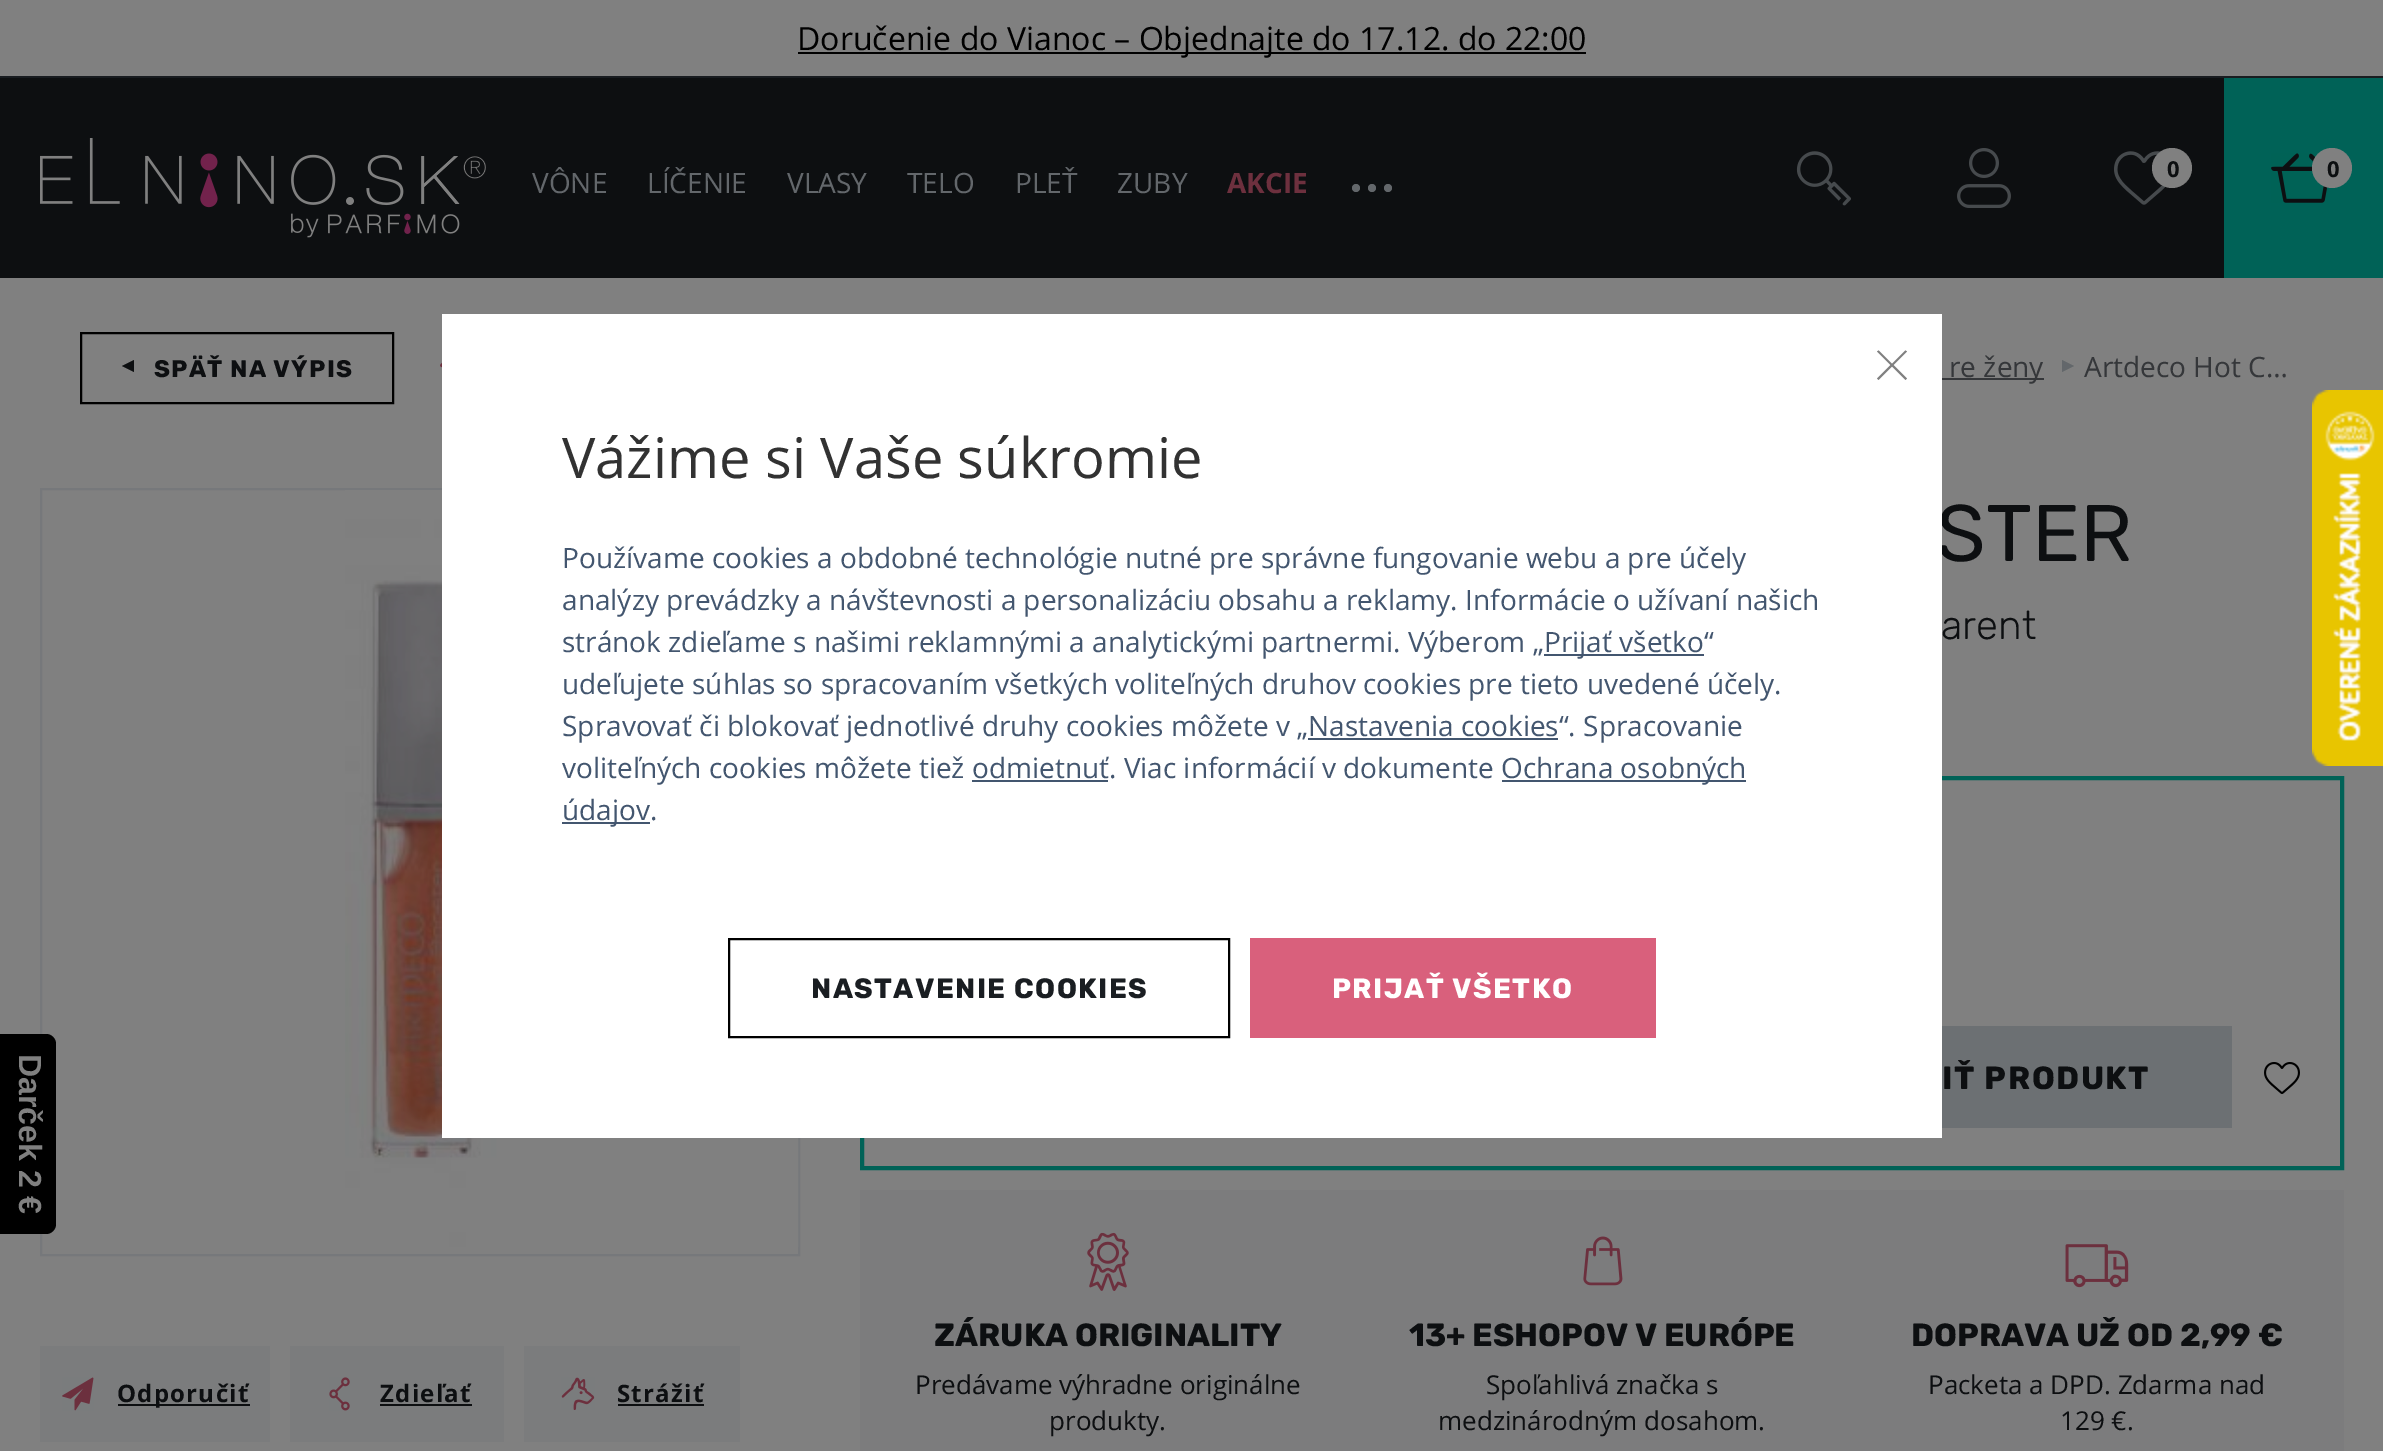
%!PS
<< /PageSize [2383 1451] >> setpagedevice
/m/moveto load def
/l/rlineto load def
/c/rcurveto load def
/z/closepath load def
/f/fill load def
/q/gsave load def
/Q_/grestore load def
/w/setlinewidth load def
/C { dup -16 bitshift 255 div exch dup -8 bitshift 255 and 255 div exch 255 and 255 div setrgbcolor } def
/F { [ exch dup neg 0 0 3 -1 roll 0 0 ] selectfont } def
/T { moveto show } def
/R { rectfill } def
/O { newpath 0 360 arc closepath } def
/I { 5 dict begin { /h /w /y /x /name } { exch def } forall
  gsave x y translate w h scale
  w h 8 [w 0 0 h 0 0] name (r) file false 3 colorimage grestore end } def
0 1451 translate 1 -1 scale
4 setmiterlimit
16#808080 C
0 0 2383 1451 R
16#181C20 C
0 76 2383 2 R
16#000000 C
798 52 788 2 R
/OpenSans-Regular 32 F
(Doručenie do Vianoc – Objednajte do 17.12. do 22:00) 797 50 T
16#0D0F11 C
0 78 2224 200 R
(1.rgb) 40 138 446 100 I
/OpenSans-Regular 28 F
16#63676B C
(VÔNE) 532 193 T
(LÍČENIE) 647 193 T
(VLASY) 787 193 T
(TELO) 907 193 T
(PLEŤ) 1015 193 T
(ZUBY) 1117 193 T
/OpenSans-Bold 28 F
16#6D303E C
(AKCIE) 1227 193 T
16#63676B C
1356 188 4 O f
1372 188 4 O f
1388 188 4 O f
(2.rgb) 1796 151 55 55 I
(3.rgb) 1957 148 54 60 I
(4.rgb) 2114 151 52 54 I
16#808080 C
2172 168 20 O f
/OpenSans-Bold 22 F
16#0D0F11 C
(0) 2167 177 T
16#006257 C
2224 78 159 200 R
(5.rgb) 2271 153 57 50 I
16#808080 C
2332 168 20 O f
16#0D0F11 C
(0) 2327 177 T
16#000000 C
2 w
81 333 312 70 rectstroke
16#0D0F11 C
134 360 m 0 12 l -12 -6 l z f
/Rubik-Bold 24 F
154 377 m 1.25 0 (SPÄŤ NA VÝPIS) ashow
(6.rgb) 440 362 2 6 I
16#35373A C
1942 378 102 2 R
/OpenSans-Regular 28 F
(re ženy) 1949 377 T
16#63676B C
2062 372 m 0 -12 l 12 6 l z f
16#35373A C
(Artdeco Hot C…) 2084 377 T
/Rubik-Regular 80 F
16#0D0F11 C
(STER) 1936 561 T
/Rubik-Light 40 F
(arent) 1941 639 T
16#76787B C
41 489 758 766 rectstroke
(7.rgb) 345 490 454 757 I
16#7B7C7D C
40 1346 230 96 R
(8.rgb) 62 1377 32 34 I
16#0D0F11 C
118 1404 132 2 R
/OpenSans-Bold 24 F
117 1402 m 1.25 0 (Odporučiť) ashow
16#7B7C7D C
290 1346 214 96 R
(9.rgb) 329 1377 21 34 I
16#0D0F11 C
380 1402 m 1.25 0 (Zdieľať) ashow
380 1404 92 2 R
16#7B7C7D C
524 1346 216 96 R
(10.rgb) 561 1377 34 33 I
16#0D0F11 C
617 1402 m 1.25 0 (Strážiť) ashow
618 1404 86 2 R
16#006257 C
4 w
862 778 1480 390 rectstroke
16#6C7073 C
1942 1026 290 102 R
/Rubik-Bold 32 F
16#0D0F11 C
1942 1089 m 1.6 0 (IŤ PRODUKT) ashow
(11.rgb) 2264 1062 36 32 I
16#7C7C7D C
860 1190 1484 261 R
(12.rgb) 1087 1232 42 59 I
16#0D0F11 C
(ZÁRUKA ORIGINALITY) 934 1346 T
/OpenSans-Regular 26 F
(Predávame výhradne originálne) 915 1394 T
(produkty.) 1049 1430 T
(13.rgb) 1583 1236 40 50 I
/Rubik-Bold 32 F
(13+ ESHOPOV V EURÓPE) 1409 1346 T
/OpenSans-Regular 26 F
(Spoľahlivá značka s) 1486 1394 T
(medzinárodným dosahom.) 1438 1430 T
(14.rgb) 2065 1244 64 44 I
/Rubik-Bold 32 F
(DOPRAVA UŽ OD 2,99 €) 1911 1346 T
/OpenSans-Regular 26 F
(Packeta a DPD. Zdarma nad) 1928 1394 T
(129 €.) 2060 1430 T
(15.rgb) 2312 390 71 376 I
16#FFFFFF C
442 314 1500 824 R
16#808080 C
1878.5 350.5 m 28.5 28 l -1.5 1.5 l -28.5 -28.5 l z f
1877 378.5 m 28.5 -28 l 1.5 1 l -28.5 28.5 l z f
/OpenSans-Regular 56 F
16#323232 C
(Vážime si Vaše súkromie) 562 478 T
/OpenSans-Regular 28 F
16#43566F C
(Používame cookies a obdobné technológie nutné pre správne fungovanie webu a pre účely) 562 568 T
(analýzy prevádzky a návštevnosti a personalizáciu obsahu a reklamy. Informácie o užívaní našich) 562 610 T
(stránok zdieľame s našimi reklamnými a analytickými partnermi. Výberom „) 562 652 T
1544 654 160 2 R
(Prijať všetko“) 1544 652 T
(udeľujete súhlas so spracovaním všetkých voliteľných druhov cookies pre tieto uvedené účely.) 562 694 T
(Spravovať či blokovať jednotlivé druhy cookies môžete v „Nastavenia cookies“. Spracovanie) 562 736 T
1308 738 250 2 R
(voliteľných cookies môžete tiež odmietnuť. Viac informácií v dokumente) 562 778 T
1502 780 244 2 R
(Ochrana osobných) 1501 778 T
972 780 136 2 R
562 822 88 2 R
(údajov.) 562 820 T
16#000000 C
2 w
729 939 500 98 rectstroke
/Rubik-Bold 28 F
16#1A1E22 C
811 998 m 1.4 0 (NASTAVENIE COOKIES) ashow
16#D9607C C
1250 938 406 100 R
16#FFFFFF C
1332 998 m 1.4 0 (PRIJAŤ VŠETKO) ashow
16#000000 C
0 1034 m 46 0 l 5.5 0 10 4.5 10 10 c 0 180 l 0 5.5 -4.5 10 -10 10 c -46 0 l z f
/LiberationSans-Bold 32 F
16#808080 C
q 19 1054 translate 90 rotate 0 0 m (Darček 2 €) show Q_
showpage
